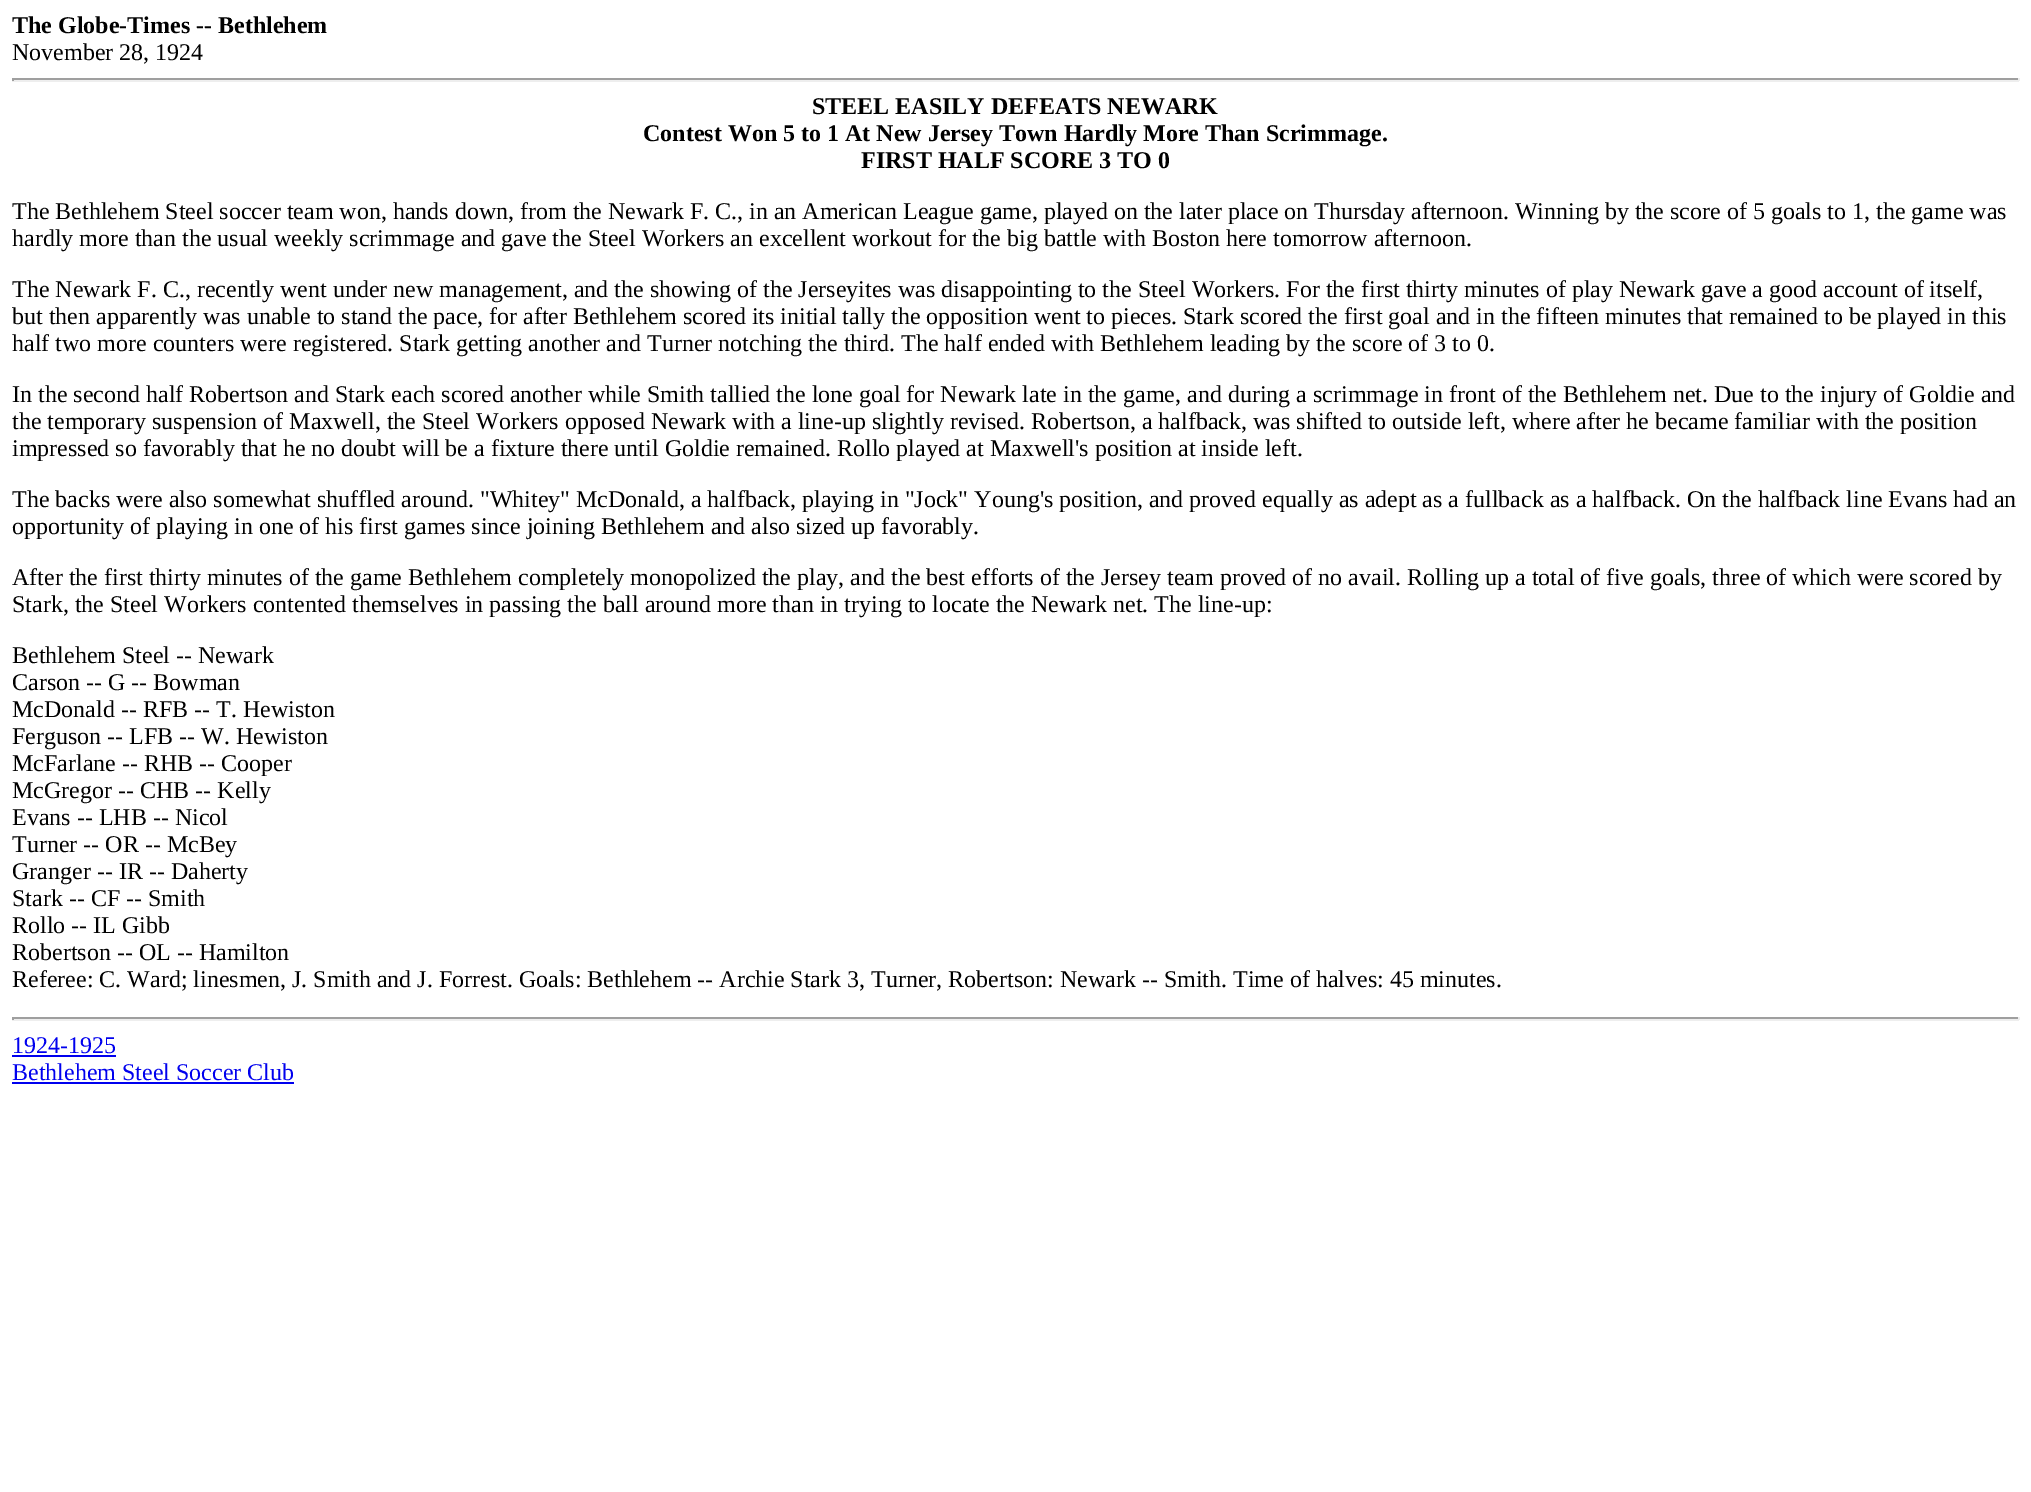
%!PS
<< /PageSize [2031 1492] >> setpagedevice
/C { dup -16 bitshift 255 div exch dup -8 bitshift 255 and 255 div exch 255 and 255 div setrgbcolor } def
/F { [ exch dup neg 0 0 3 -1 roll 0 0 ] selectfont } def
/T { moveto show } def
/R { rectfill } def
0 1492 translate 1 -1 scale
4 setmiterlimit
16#FFFFFF C
0 0 2031 1492 R
/LiberationSerif-Bold 24 F
16#000000 C
(The Globe-Times -- Bethlehem) 12 33 T
/LiberationSerif-Regular 24 F
(November 28, 1924) 12 60 T
16#9F9F9F C
12 78 2007 2 R
16#EEEEEE C
2018 78 2 3 R
12 80 2007 2 R
16#9F9F9F C
12 78 2 3 R
/LiberationSerif-Bold 24 F
16#000000 C
(STEEL EASILY DEFEATS NEWARK) 812 114 T
(Contest Won 5 to 1 At New Jersey Town Hardly More Than Scrimmage.) 643 141 T
(FIRST HALF SCORE 3 TO 0) 861 168 T
/LiberationSerif-Regular 24 F
(The Bethlehem Steel soccer team won, hands down, from the Newark F. C., in an American League game, played on the later place on Thursday afternoon. Winning by the score of 5 goals to 1, the game was) 12 219 T
(hardly more than the usual weekly scrimmage and gave the Steel Workers an excellent workout for the big battle with Boston here tomorrow afternoon.) 12 246 T
(The Newark F. C., recently went under new management, and the showing of the Jerseyites was disappointing to the Steel Workers. For the first thirty minutes of play Newark gave a good account of itself,) 12 297 T
(but then apparently was unable to stand the pace, for after Bethlehem scored its initial tally the opposition went to pieces. Stark scored the first goal and in the fifteen minutes that remained to be played in this) 12 324 T
(half two more counters were registered. Stark getting another and Turner notching the third. The half ended with Bethlehem leading by the score of 3 to 0.) 12 351 T
(In the second half Robertson and Stark each scored another while Smith tallied the lone goal for Newark late in the game, and during a scrimmage in front of the Bethlehem net. Due to the injury of Goldie and) 12 402 T
(the temporary suspension of Maxwell, the Steel Workers opposed Newark with a line-up slightly revised. Robertson, a halfback, was shifted to outside left, where after he became familiar with the position) 12 429 T
(impressed so favorably that he no doubt will be a fixture there until Goldie remained. Rollo played at Maxwell's position at inside left.) 12 456 T
(The backs were also somewhat shuffled around. "Whitey" McDonald, a halfback, playing in "Jock" Young's position, and proved equally as adept as a fullback as a halfback. On the halfback line Evans had an) 12 507 T
(opportunity of playing in one of his first games since joining Bethlehem and also sized up favorably.) 12 534 T
(After the first thirty minutes of the game Bethlehem completely monopolized the play, and the best efforts of the Jersey team proved of no avail. Rolling up a total of five goals, three of which were scored by) 12 585 T
(Stark, the Steel Workers contented themselves in passing the ball around more than in trying to locate the Newark net. The line-up:) 12 612 T
(Bethlehem Steel -- Newark) 12 663 T
(Carson -- G -- Bowman) 12 690 T
(McDonald -- RFB -- T. Hewiston) 12 717 T
(Ferguson -- LFB -- W. Hewiston) 12 744 T
(McFarlane -- RHB -- Cooper) 12 771 T
(McGregor -- CHB -- Kelly) 12 798 T
(Evans -- LHB -- Nicol) 12 825 T
(Turner -- OR -- McBey) 12 852 T
(Granger -- IR -- Daherty) 12 879 T
(Stark -- CF -- Smith) 12 906 T
(Rollo -- IL Gibb) 12 933 T
(Robertson -- OL -- Hamilton) 12 960 T
(Referee: C. Ward; linesmen, J. Smith and J. Forrest. Goals: Bethlehem -- Archie Stark 3, Turner, Robertson: Newark -- Smith. Time of halves: 45 minutes.) 12 987 T
16#9F9F9F C
12 1017 2007 2 R
16#EEEEEE C
2018 1017 2 3 R
12 1019 2007 2 R
16#9F9F9F C
12 1017 2 3 R
16#0000EE C
(1924-1925) 12 1053 T
12 1055 104 2 R
(Bethlehem Steel Soccer Club) 12 1080 T
12 1082 282 2 R
showpage
